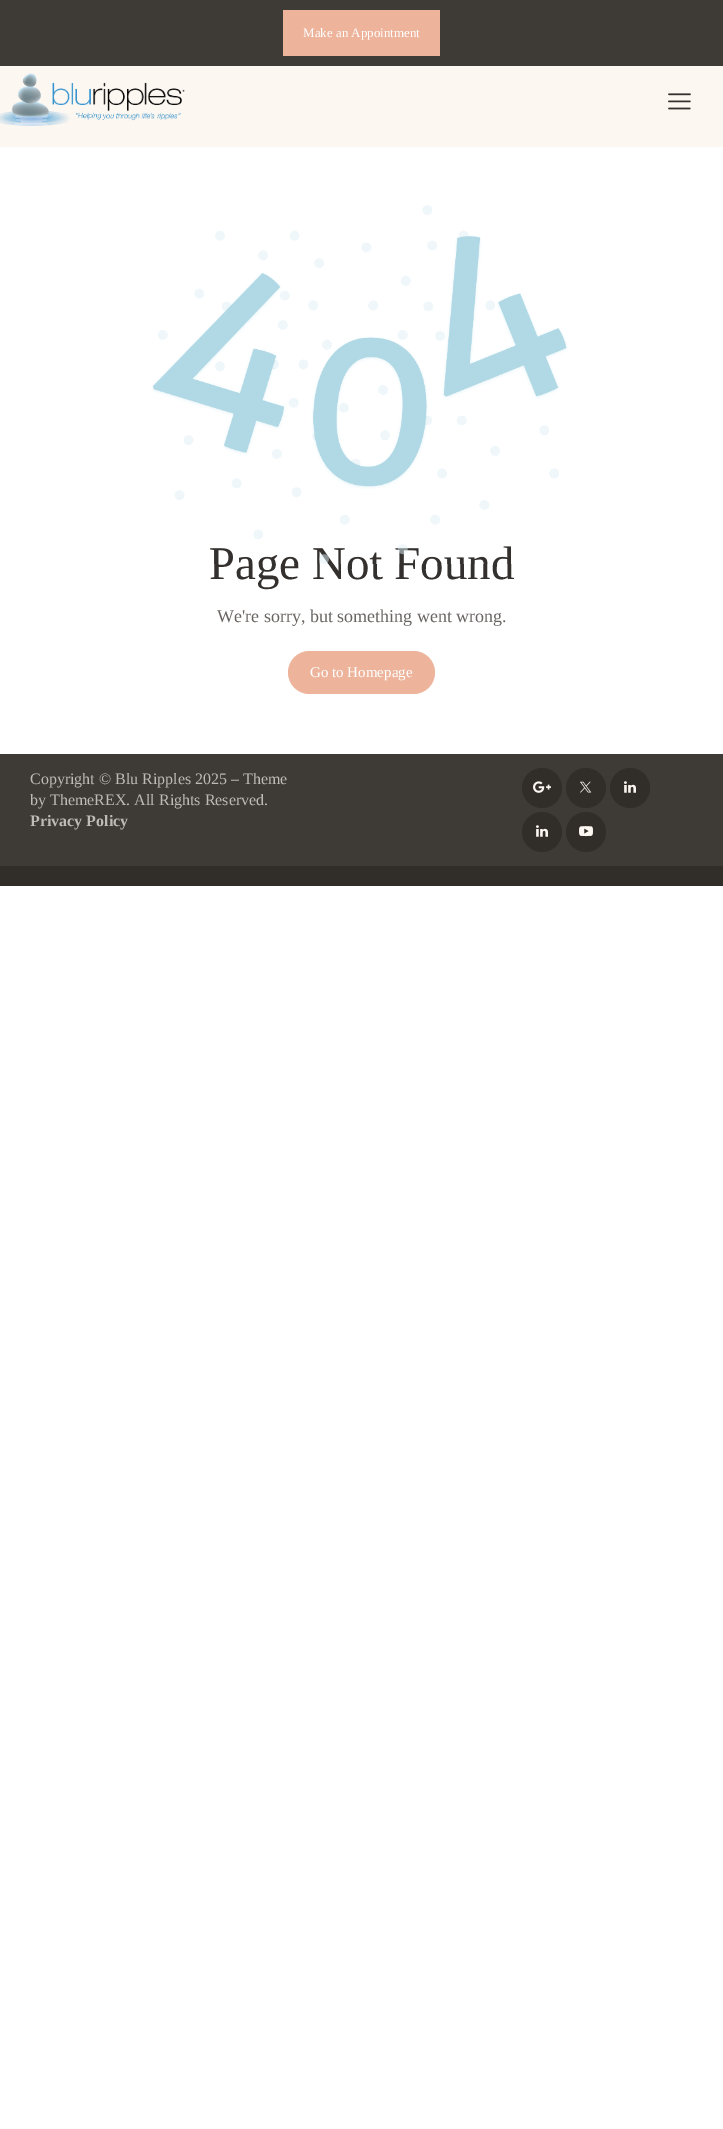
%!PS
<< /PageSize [723 2129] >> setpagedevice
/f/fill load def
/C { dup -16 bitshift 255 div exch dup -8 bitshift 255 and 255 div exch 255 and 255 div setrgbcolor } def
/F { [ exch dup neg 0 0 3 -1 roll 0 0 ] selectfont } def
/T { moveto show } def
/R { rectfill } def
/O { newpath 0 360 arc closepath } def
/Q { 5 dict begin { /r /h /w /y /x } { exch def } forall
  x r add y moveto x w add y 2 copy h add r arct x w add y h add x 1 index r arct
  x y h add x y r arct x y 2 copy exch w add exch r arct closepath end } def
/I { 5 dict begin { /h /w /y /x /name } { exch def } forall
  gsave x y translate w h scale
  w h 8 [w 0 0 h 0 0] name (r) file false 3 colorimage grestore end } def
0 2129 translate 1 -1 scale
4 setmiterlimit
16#FFFFFF C
0 0 723 2129 R
16#3E3B37 C
0 0 723 66 R
16#EDB39B C
283 10 157 46 R
/LiberationSerif-Regular 13 F
16#FFFFFF C
(Make an Appointment) 303 37 T
16#FCF7F1 C
0 66 723 81 R
(1.rgb) 0 73 185 53 I
(2.rgb) 668 93 23 17 I
/LiberationSerif-Regular 47 F
16#33302E C
(Page Not Found) 209 579 T
(3.rgb) 151 205 417 359 I
/LiberationSerif-Regular 18 F
16#696462 C
(We're sorry, but something went wrong.) 217 622 T
16#EDB39B C
288 651 147 43 21.5 Q f
/LiberationSerif-Regular 15 F
16#FFFFFF C
(Go to Homepage) 310 677 T
16#312E2A C
0 866 723 20 R
16#3E3B37 C
0 754 723 112 R
/LiberationSerif-Regular 16 F
16#BEBAB6 C
(Copyright © Blu Ripples 2025 – Theme) 30 784 T
(by ThemeREX. All Rights Reserved.) 30 805 T
/LiberationSerif-Bold 16 F
(Privacy Policy) 30 826 T
16#312E2A C
542 788 20 O f
(4.rgb) 533 781 18 12 I
586 788 20 O f
(5.rgb) 580 781 12 12 I
630 788 20 O f
(6.rgb) 624 781 12 12 I
542 832 20 O f
(6.rgb) 536 825 12 12 I
586 832 20 O f
(7.rgb) 579 826 14 11 I
showpage
